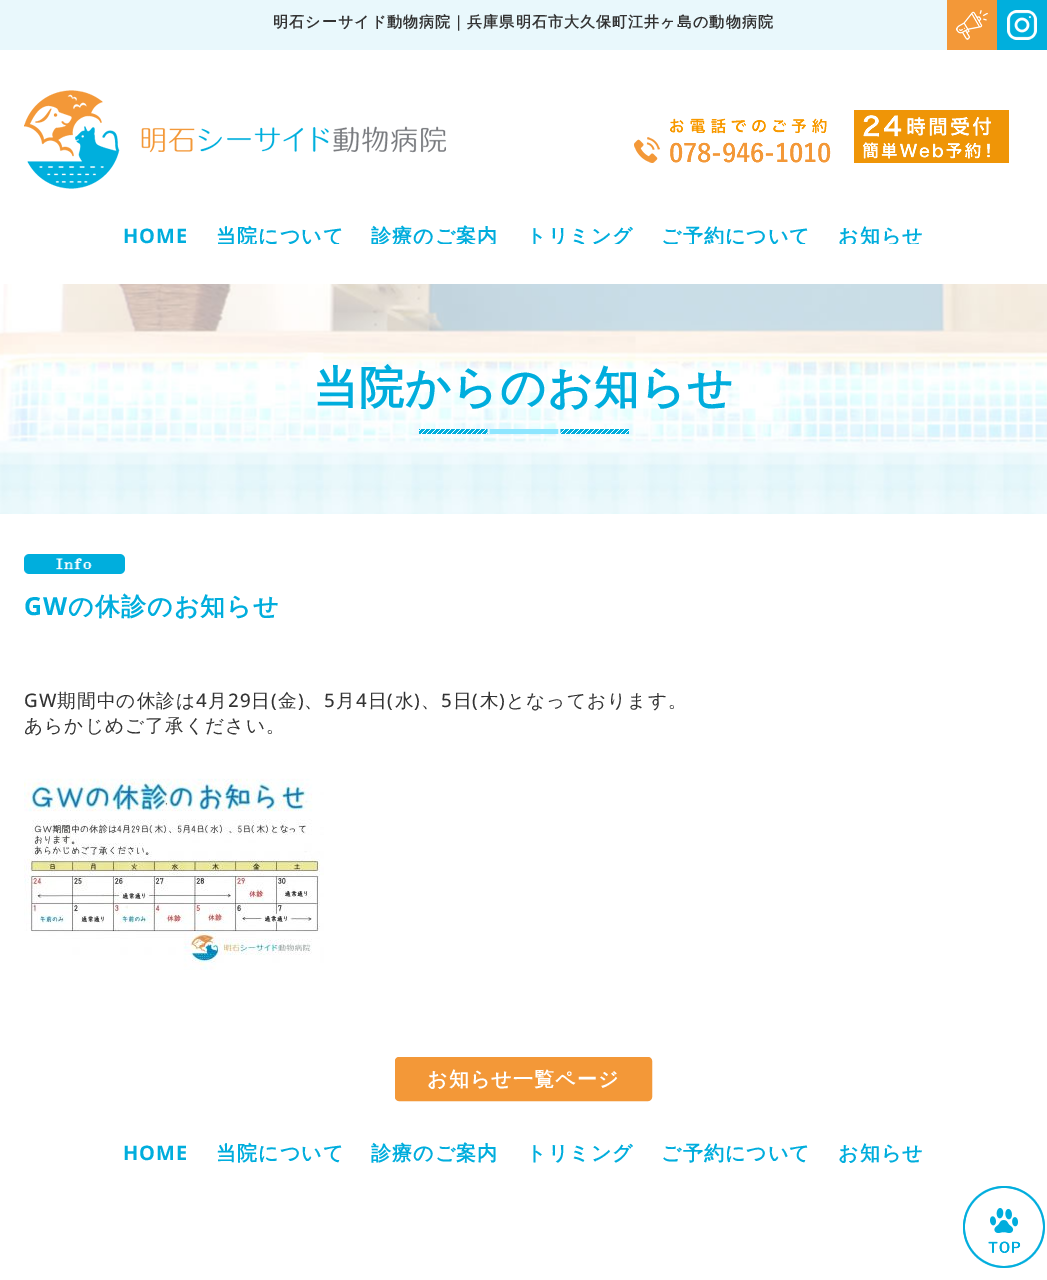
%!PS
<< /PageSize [1047 1280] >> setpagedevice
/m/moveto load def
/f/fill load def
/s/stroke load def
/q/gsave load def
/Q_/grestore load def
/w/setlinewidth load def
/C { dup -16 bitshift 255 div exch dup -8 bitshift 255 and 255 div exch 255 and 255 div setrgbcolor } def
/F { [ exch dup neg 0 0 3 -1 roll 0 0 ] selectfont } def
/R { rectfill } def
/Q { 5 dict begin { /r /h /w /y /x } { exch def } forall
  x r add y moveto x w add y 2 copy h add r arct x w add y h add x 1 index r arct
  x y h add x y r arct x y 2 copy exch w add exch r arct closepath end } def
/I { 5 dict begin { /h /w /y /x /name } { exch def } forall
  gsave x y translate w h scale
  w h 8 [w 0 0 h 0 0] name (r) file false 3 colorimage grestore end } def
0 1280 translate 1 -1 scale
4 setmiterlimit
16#FFFFFF C
0 0 1047 1280 R
16#E9F8FC C
0 0 947 50 R
/WenQuanYiZenHei-Bold 15 F
16#333333 C
273 27 m 1.1 0 (明石シーサイド動物病院｜兵庫県明石市大久保町江井ヶ島の動物病院) ashow
(1.rgb) 947 0 50 50 I
(2.rgb) 997 0 50 50 I
(3.rgb) 24 90 422 99 I
(4.rgb) 634 118 197 45 I
(5.rgb) 854 110 155 53 I
/OpenSans-Bold 20 F
16#00ADDD C
123 243 m 1.1 0 (HOME) ashow
q
210 224 140 20 rectclip
/WenQuanYiZenHei-Bold 20 F
216 243 m 1.1 0 (当院について) ashow
Q_
q
365 224 140 20 rectclip
/WenQuanYiZenHei-Bold 20 F
371 243 m 1.1 0 (診療のご案内) ashow
Q_
q
520 224 120 20 rectclip
/WenQuanYiZenHei-Bold 20 F
526 243 m 1.1 0 (トリミング) ashow
Q_
q
655 224 162 20 rectclip
/WenQuanYiZenHei-Bold 20 F
661 243 m 1.1 0 (ご予約について) ashow
Q_
q
832 224 98 20 rectclip
/WenQuanYiZenHei-Bold 20 F
838 243 m 1.1 0 (お知らせ) ashow
Q_
(6.rgb) 0 284 1047 230 I
(7.rgb) 419 429 210 5 I
/WenQuanYiZenHei-Bold 45 F
313 403 m 1.1 0 (当院からのお知らせ) ashow
(8.rgb) 24 554 101 20 I
/OpenSans-Bold 25 F
24 615 m 1.1 0 (GW) ashow
/WenQuanYiZenHei-Bold 25 F
68 615 m 1.1 0 (の休診のお知らせ) ashow
/OpenSans-Medium 18.7 F
16#333333 C
24 707 m 1.1 0 (GW) ashow
/WenQuanYiZenHei-Medium 18.7 F
57 707 m 1.1 0 (期間中の休診は) ashow
/OpenSans-Medium 18.7 F
196 707 m 1.1 0 (4) ashow
/WenQuanYiZenHei-Medium 18.7 F
208 707 m 1.1 0 (月) ashow
/OpenSans-Medium 18.7 F
228 707 m 1.1 0 (29) ashow
/WenQuanYiZenHei-Medium 18.7 F
251 707 m 1.1 0 (日 金 、) ashow
336 707 m 1.1 0 (月) ashow
368 707 m 1.1 0 (日 水 、) ashow
453 707 m 1.1 0 (日 木 となっております。) ashow
/OpenSans-Medium 18.7 F
271 707 m 1.1 0 (\() ashow
298 707 m 1.1 0 (\)) ashow
324 707 m 1.1 0 (5) ashow
356 707 m 1.1 0 (4) ashow
387 707 m 1.1 0 (\() ashow
414 707 m 1.1 0 (\)) ashow
441 707 m 1.1 0 (5) ashow
472 707 m 1.1 0 (\() ashow
499 707 m 1.1 0 (\)) ashow
/WenQuanYiZenHei-Medium 18.7 F
24 732 m 1.1 0 (あらかじめご了承ください。) ashow
(9.rgb) 24 778 300 192 I
16#F39838 C
396 1058 255 42 3 Q q f Q_
2 w
s
/WenQuanYiZenHei-Bold 20 F
16#FFFFFF C
427 1086 m 1.1 0 (お知らせ一覧ページ) ashow
/OpenSans-Bold 20 F
16#00ADDD C
123 1160 m 1.1 0 (HOME) ashow
/WenQuanYiZenHei-Bold 20 F
216 1160 m 1.1 0 (当院について) ashow
371 1160 m 1.1 0 (診療のご案内) ashow
526 1160 m 1.1 0 (トリミング) ashow
661 1160 m 1.1 0 (ご予約について) ashow
838 1160 m 1.1 0 (お知らせ) ashow
(10.rgb) 963 1186 82 82 I
showpage
